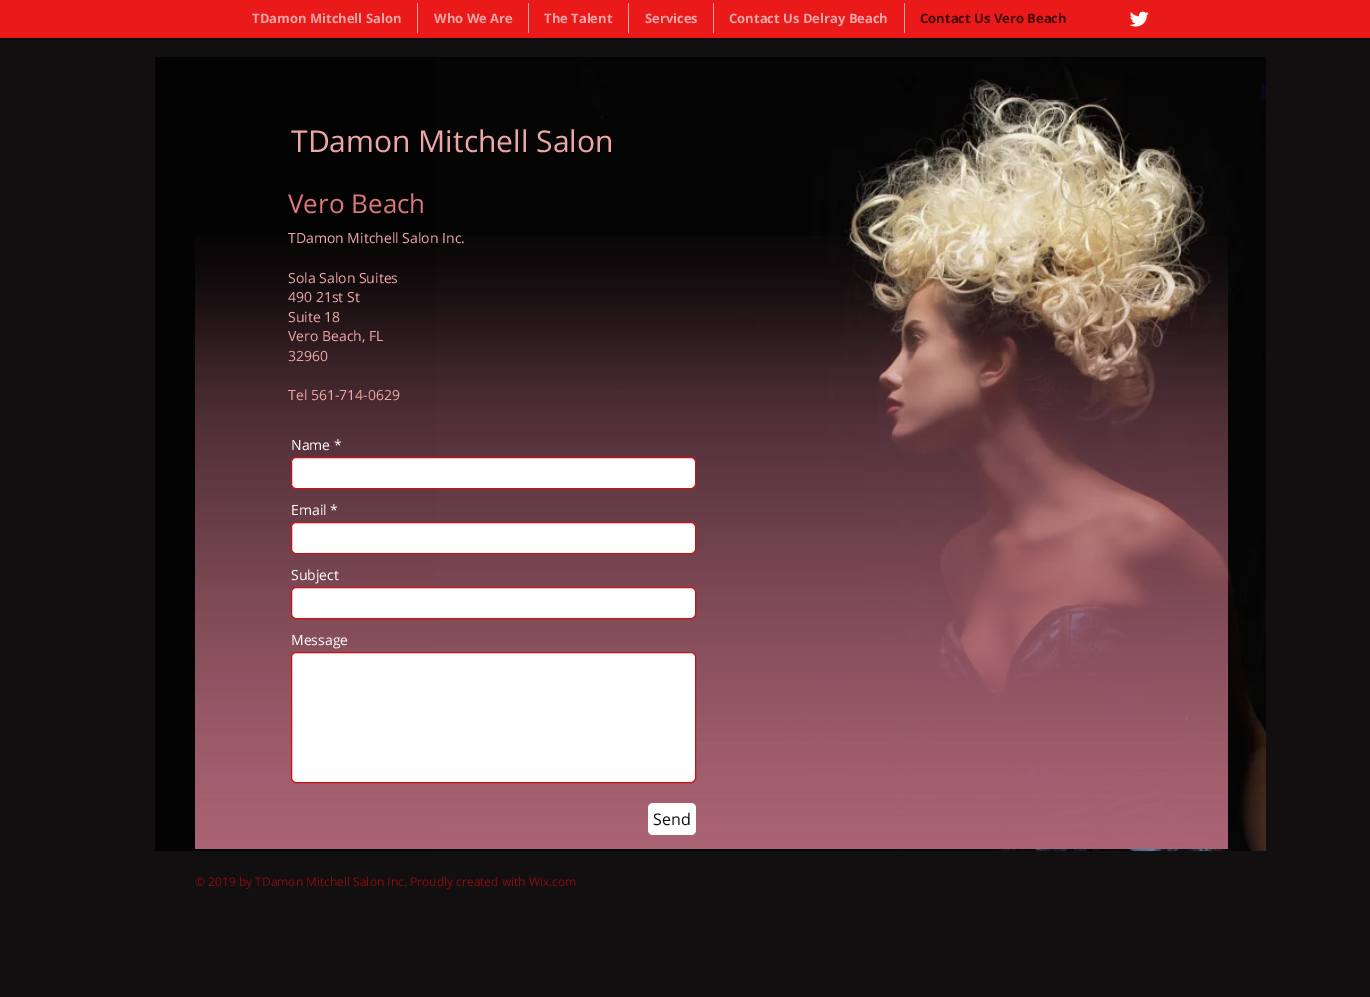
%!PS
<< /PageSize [1370 997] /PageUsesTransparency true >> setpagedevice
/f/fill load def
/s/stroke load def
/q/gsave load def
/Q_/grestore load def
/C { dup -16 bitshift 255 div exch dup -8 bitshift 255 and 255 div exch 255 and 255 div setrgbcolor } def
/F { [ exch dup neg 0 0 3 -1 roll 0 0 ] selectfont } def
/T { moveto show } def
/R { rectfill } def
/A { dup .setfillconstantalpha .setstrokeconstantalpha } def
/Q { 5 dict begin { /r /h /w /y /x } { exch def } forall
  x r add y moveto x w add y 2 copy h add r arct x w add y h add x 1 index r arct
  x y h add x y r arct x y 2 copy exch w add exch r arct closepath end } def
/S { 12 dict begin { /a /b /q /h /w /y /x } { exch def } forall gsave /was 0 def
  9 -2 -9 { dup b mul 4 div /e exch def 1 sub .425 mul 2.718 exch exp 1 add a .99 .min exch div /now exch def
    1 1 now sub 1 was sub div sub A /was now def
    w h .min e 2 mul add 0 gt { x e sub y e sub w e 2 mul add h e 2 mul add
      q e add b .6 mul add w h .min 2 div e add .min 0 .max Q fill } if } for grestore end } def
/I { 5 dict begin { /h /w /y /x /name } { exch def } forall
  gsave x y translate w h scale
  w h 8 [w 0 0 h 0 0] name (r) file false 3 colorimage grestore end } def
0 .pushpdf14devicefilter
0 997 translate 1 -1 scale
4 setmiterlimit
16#110F0F C
0 0 1370 997 R
16#000000 C
0 -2 1370 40 0 2.5 .7 S
16#EB1A1A C
0 0 1370 38 R
/OpenSans-Bold 13 F
16#EEA5A6 C
(TDamon Mitchell Salon) 252 23 T
417 3 1 30 R
(Who We Are) 434 23 T
528 3 1 30 R
(The Talent) 544 23 T
628 3 1 30 R
(Services) 645 23 T
713 3 1 30 R
(Contact Us Delray Beach) 729 23 T
904 3 1 30 R
16#440506 C
(Contact Us Vero Beach) 920 23 T
(1.rgb) 1130 11 19 16 I
(2.rgb) 155 57 1111 794 I
/OpenSans-Regular 30 F
16#EEA5A6 C
(TDamon Mitchell Salon) 291 152 T
/OpenSans-Regular 26 F
16#DD7779 C
(Vero Beach) 288 213 T
(3.rgb) 195 236 1033 613 I
/OpenSans-Regular 14 F
16#EEA5A6 C
(TDamon Mitchell Salon Inc.) 288 243 T
(Sola Salon Suites) 288 283 T
(490 21st St) 288 302 T
(Suite 18) 288 322 T
(Vero Beach, FL) 288 341 T
(32960) 288 361 T
(Tel 561-714-0629) 288 400 T
16#FFFFFF C
(Name *) 291 450 T
291.5 457.5 404 31 4.5 Q q f Q_
16#CC1013 C
s
16#FFFFFF C
(Email *) 291 515 T
291.5 522.5 404 31 4.5 Q q f Q_
16#CC1013 C
s
16#FFFFFF C
(Subject) 291 580 T
291.5 587.5 404 31 4.5 Q q f Q_
16#CC1013 C
s
16#FFFFFF C
(Message) 291 645 T
291.5 652.5 404 130 4.5 Q q f Q_
16#CC1013 C
s
16#FFFFFF C
648 803 48 32 5 Q f
/OpenSans-Regular 16 F
16#110F0F C
(Send) 653 825 T
/OpenSans-Regular 12 F
16#880B0D C
(© 2019 by TDamon Mitchell Salon Inc. Proudly created with Wix.com) 195 886 T
.poppdf14devicefilter showpage
